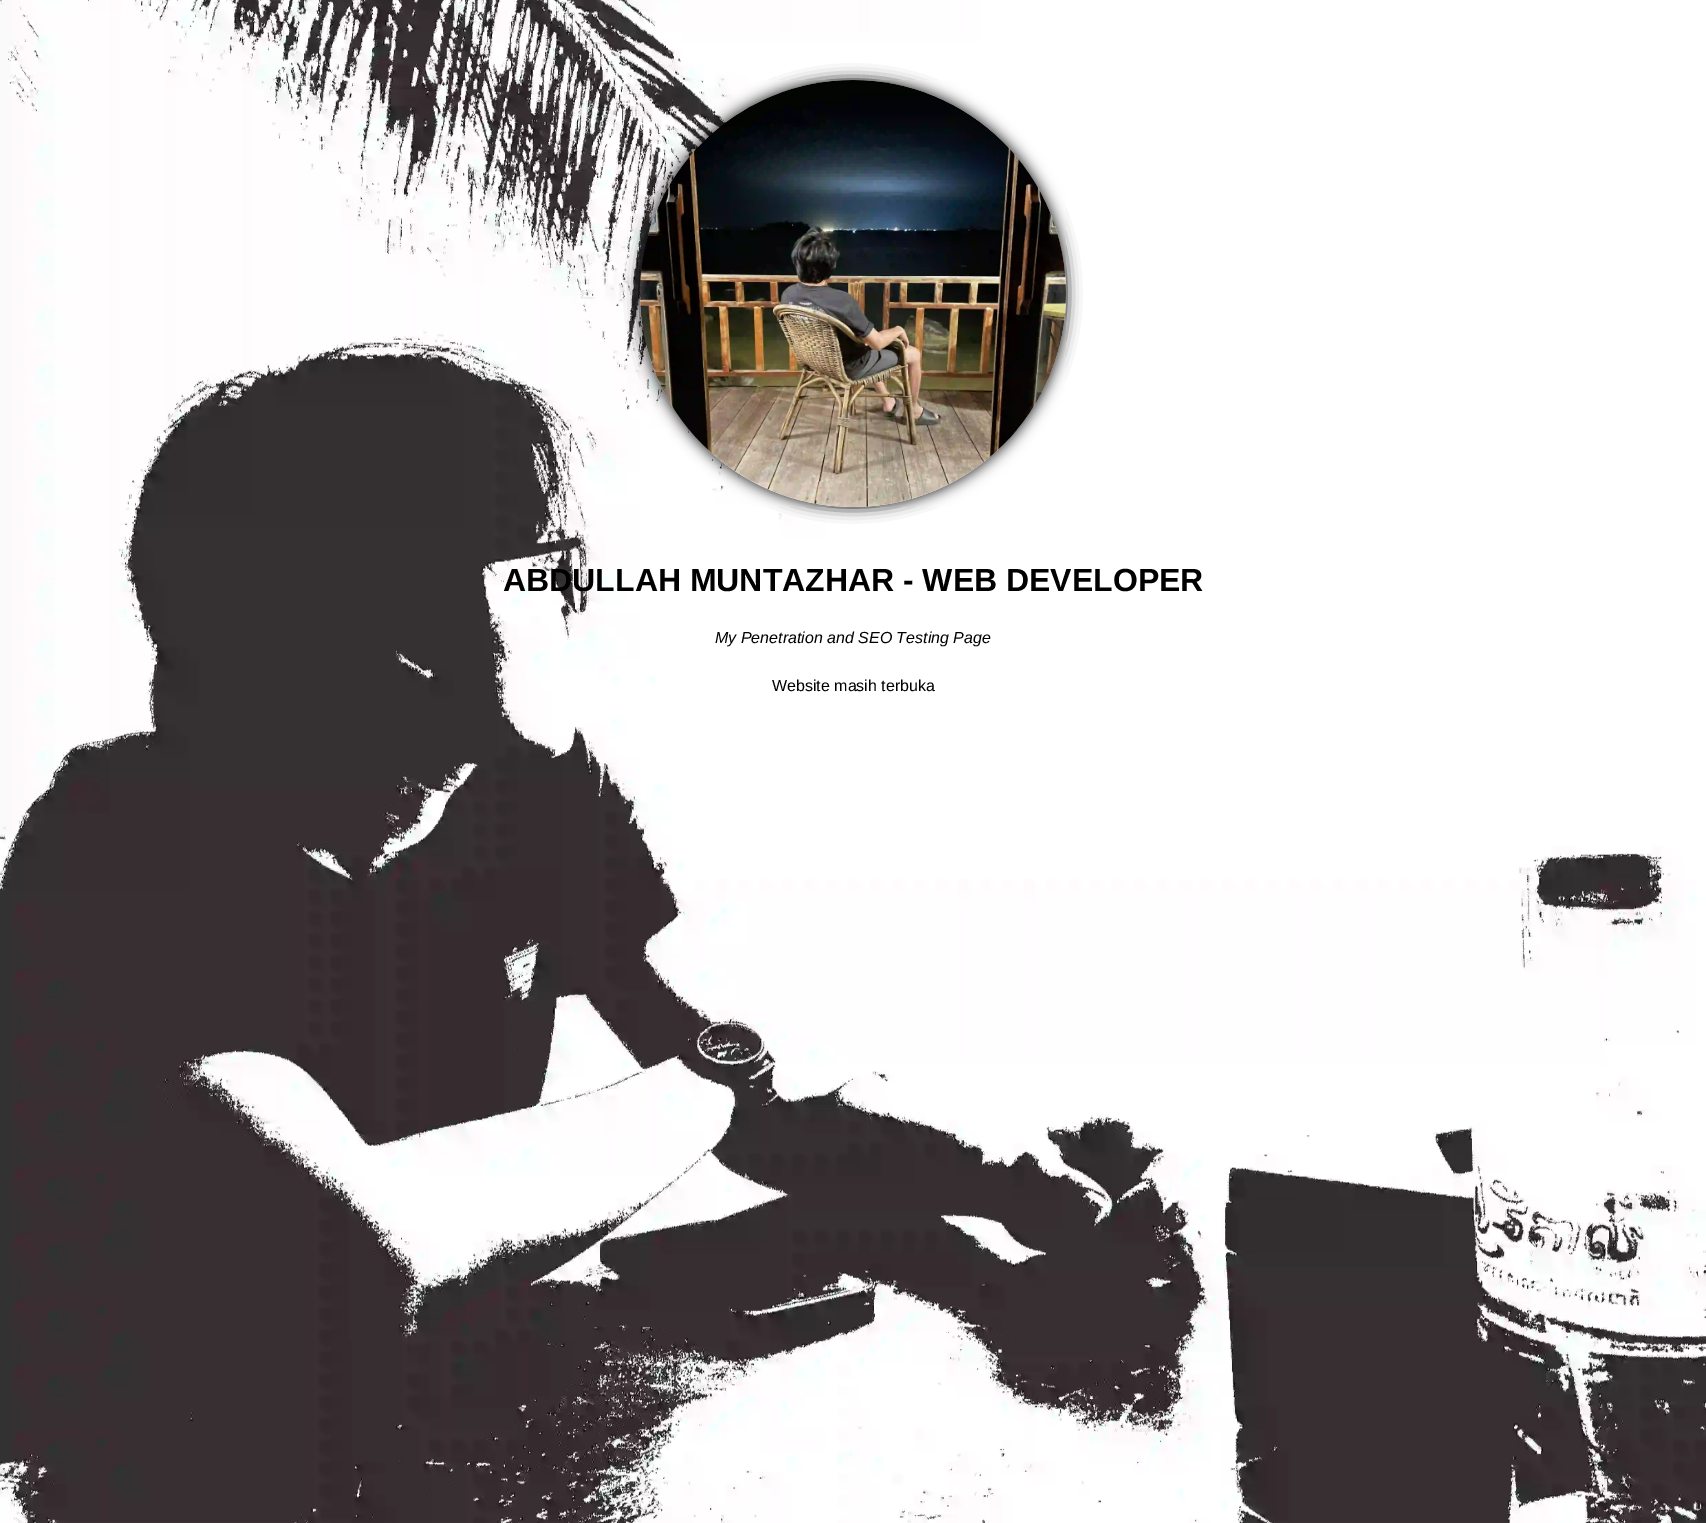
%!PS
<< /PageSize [1706 1523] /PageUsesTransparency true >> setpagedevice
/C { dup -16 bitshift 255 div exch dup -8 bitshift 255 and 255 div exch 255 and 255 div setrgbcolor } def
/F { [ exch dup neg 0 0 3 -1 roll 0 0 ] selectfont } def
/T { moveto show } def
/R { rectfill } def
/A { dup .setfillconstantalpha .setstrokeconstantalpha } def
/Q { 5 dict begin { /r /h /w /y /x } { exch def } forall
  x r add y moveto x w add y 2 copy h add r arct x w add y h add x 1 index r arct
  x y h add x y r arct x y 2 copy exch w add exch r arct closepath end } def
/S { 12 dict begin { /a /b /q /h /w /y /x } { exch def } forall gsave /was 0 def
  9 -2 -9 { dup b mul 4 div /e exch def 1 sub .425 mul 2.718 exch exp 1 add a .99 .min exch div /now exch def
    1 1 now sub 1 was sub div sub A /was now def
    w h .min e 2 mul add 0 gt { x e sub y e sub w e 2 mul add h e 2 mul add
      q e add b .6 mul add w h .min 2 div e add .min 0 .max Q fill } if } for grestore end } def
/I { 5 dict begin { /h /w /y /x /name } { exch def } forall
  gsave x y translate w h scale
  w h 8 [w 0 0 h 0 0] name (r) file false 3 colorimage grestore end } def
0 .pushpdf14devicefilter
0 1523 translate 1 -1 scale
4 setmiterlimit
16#FFFFFF C
0 0 1706 1523 R
(1.rgb) 0 0 1706 1523 I
16#000000 C
640 80 426 427 213 7.5 1 S
(2.rgb) 640 80 426 427 I
/LiberationSans-Bold 32 F
(ABDULLAH MUNTAZHAR - WEB DEVELOPER) 503 591 T
/LiberationSans-Italic 16 F
(My Penetration and SEO Testing Page) 715 643 T
/LiberationSans-Regular 16 F
(Website masih terbuka) 772 691 T
.poppdf14devicefilter showpage
